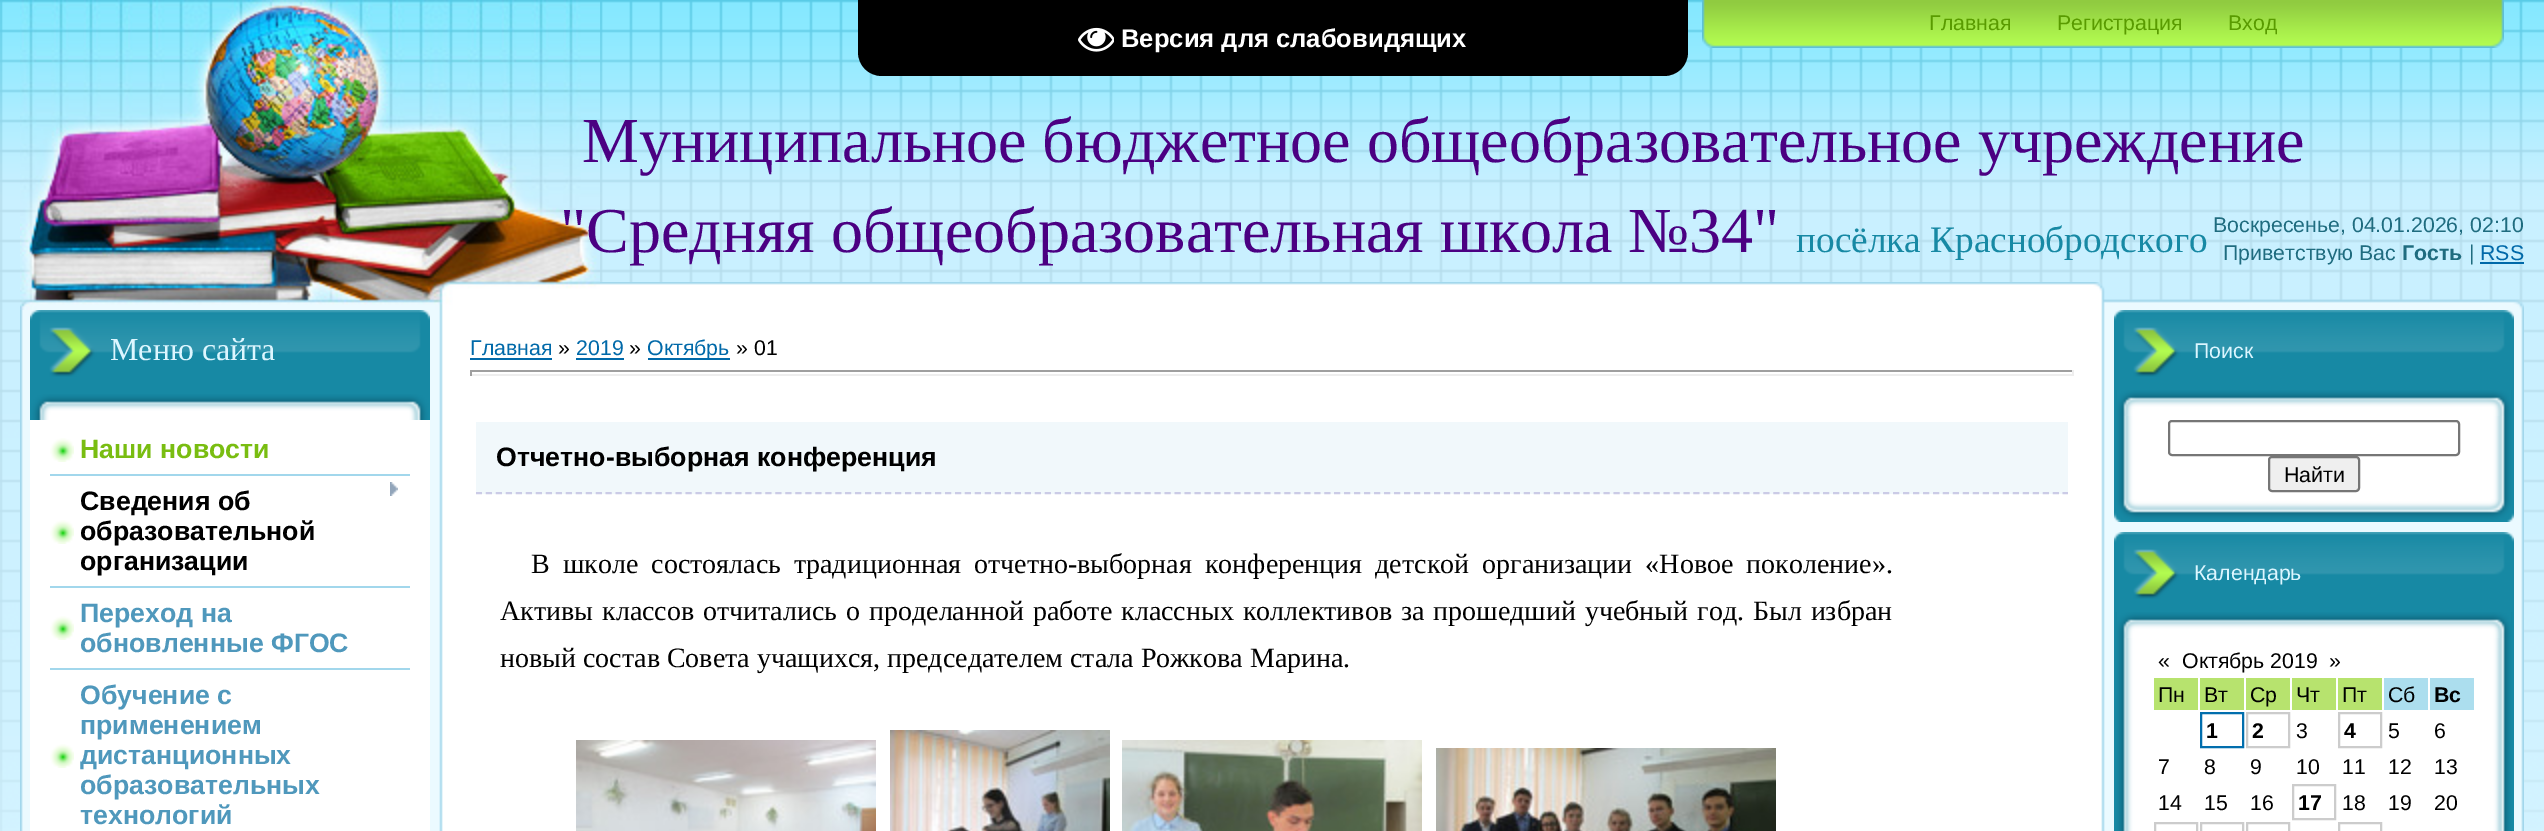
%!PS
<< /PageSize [2544 831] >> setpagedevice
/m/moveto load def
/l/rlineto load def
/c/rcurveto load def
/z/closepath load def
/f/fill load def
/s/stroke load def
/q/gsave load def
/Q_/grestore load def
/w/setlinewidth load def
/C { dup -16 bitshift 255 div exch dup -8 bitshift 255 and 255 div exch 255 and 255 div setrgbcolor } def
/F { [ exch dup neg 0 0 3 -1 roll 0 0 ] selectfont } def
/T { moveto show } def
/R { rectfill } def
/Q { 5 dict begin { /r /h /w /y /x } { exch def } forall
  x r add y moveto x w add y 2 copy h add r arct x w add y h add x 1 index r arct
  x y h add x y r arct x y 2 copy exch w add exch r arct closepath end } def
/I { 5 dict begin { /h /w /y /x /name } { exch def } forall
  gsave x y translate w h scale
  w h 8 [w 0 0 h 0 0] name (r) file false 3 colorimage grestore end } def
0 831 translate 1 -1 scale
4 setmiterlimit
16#FFFFFF C
0 0 2544 831 R
(1.rgb) 0 0 2544 831 I
(2.rgb) 600 282 1924 28 I
(3.rgb) 20 0 580 310 I
(4.rgb) 1702 0 802 48 I
/LiberationSans-Regular 21.3 F
16#599B00 C
(Главная) 1929 30 T
(Регистрация) 2057 30 T
(Вход) 2228 30 T
/LiberationSerif-Regular 64 F
16#4B0082 C
(Муниципальное бюджетное общеобразовательное учреждение) 582 162 T
("Средняя общеобразовательная школа №34") 560 252 T
/LiberationSerif-Regular 37.25 F
16#1789A4 C
(посёлка Краснобродского) 1796 252 T
/LiberationSans-Regular 21.3 F
16#1F6C7F C
(Воскресенье, 04.01.2026, 02:10) 2213 232 T
(Приветствую Вас) 2223 260 T
/LiberationSans-Bold 21.3 F
(Гость) 2402 260 T
/LiberationSans-Regular 21.3 F
(|) 2469 260 T
16#0069A9 C
(RSS) 2480 260 T
2480 262 44 2 R
(5.rgb) 20 310 430 521 I
16#FFFFFF C
30 420 400 411 R
16#1789A4 C
30 377 400 17 R
(6.rgb) 30 310 400 67 I
/LiberationSerif-Regular 32 F
16#DCF6FF C
(Меню сайта) 110 360 T
(7.rgb) 30 394 400 26 I
(8.rgb) 50 438 24 24 I
16#A2D7EC C
50 474 360 2 R
/LiberationSans-Bold 26.7 F
16#79BD11 C
(Наши новости) 80 458 T
(8.rgb) 50 520 24 24 I
16#A2D7EC C
50 586 360 2 R
16#000000 C
(Сведения об) 80 510 T
(9.rgb) 390 482 8 14 I
(образовательной) 80 540 T
(организации) 80 570 T
(8.rgb) 50 616 24 24 I
16#A2D7EC C
50 668 360 2 R
16#4F98BC C
(Переход на) 80 622 T
(обновленные ФГОС) 80 652 T
(8.rgb) 50 744 24 24 I
(Обучение с) 80 704 T
(применением) 80 734 T
(дистанционных) 80 764 T
(образовательных) 80 794 T
(технологий) 80 824 T
16#FFFFFF C
450 310 1644 521 R
/LiberationSans-Regular 21.3 F
16#0069A9 C
(Главная) 470 355 T
470 358 82 2 R
16#000000 C
(») 558 355 T
16#0069A9 C
(2019) 576 355 T
576 358 48 2 R
16#000000 C
(») 629 355 T
16#0069A9 C
648 358 82 2 R
(Октябрь) 647 355 T
16#000000 C
(» 01) 736 355 T
16#9F9F9F C
470 370 1604 2 R
16#EEEEEE C
2072 370 2 6 R
470 374 1604 2 R
16#9F9F9F C
470 370 2 6 R
16#F1F8FB C
476 422 1592 72 R
16#CBCBE6 C
2 w
[6 3.98] 0 setdash
476 493 m 1592 0 l s
/LiberationSans-Bold 26.7 F
16#000000 C
(Отчетно-выборная конференция) 496 466 T
/LiberationSerif-Regular 28 F
531 573 m 6 0 32 (В школе состоялась традиционная отчетно-выборная конференция детской организации «Новое поколение».) widthshow
500 620 m 1.9 0 32 (Активы классов отчитались о проделанной работе классных коллективов за прошедший учебный год. Был избран) widthshow
(новый состав Совета учащихся, председателем стала Рожкова Марина.) 500 667 T
(10.rgb) 576 740 300 91 I
(11.rgb) 890 730 220 101 I
(12.rgb) 1122 740 300 91 I
(13.rgb) 1436 748 340 83 I
(14.rgb) 2094 310 430 521 I
(15.rgb) 2114 390 400 132 I
16#1789A4 C
2114 377 400 13 R
(6.rgb) 2114 310 400 67 I
/LiberationSans-Regular 21.3 F
16#DCF6FF C
(Поиск) 2194 358 T
(16.rgb) 2117 390 394 26 I
16#767676 C
[] 0 setdash
2169 421 290 34 3 Q s
16#EFEFEF C
2269 457 90 34 3 Q q f Q_
16#767676 C
s
16#000000 C
(Найти) 2284 482 T
(17.rgb) 2114 612 400 219 I
16#1789A4 C
2114 599 400 13 R
(6.rgb) 2114 532 400 67 I
16#DCF6FF C
(Календарь) 2194 580 T
(16.rgb) 2117 612 394 26 I
16#000000 C
(«) 2158 668 T
(Октябрь 2019) 2182 668 T
(») 2329 668 T
16#B7E36E C
2154 678 44 32 R
16#000000 C
(Пн) 2158 702 T
16#B7E36E C
2200 678 44 32 R
16#000000 C
(Вт) 2204 702 T
16#B7E36E C
2246 678 44 32 R
16#000000 C
(Ср) 2250 702 T
16#B7E36E C
2292 678 44 32 R
16#000000 C
(Чт) 2296 702 T
16#B7E36E C
2338 678 44 32 R
16#000000 C
(Пт) 2342 702 T
16#ACDEEE C
2384 678 44 32 R
16#000000 C
(Сб) 2388 702 T
16#ACDEEE C
2430 678 44 32 R
/LiberationSans-Bold 21.3 F
16#000000 C
(Вс) 2434 702 T
16#016EAD C
2201 713 42 34 rectstroke
16#000000 C
(1) 2206 738 T
16#CCCCCC C
2247 713 42 34 rectstroke
16#000000 C
(2) 2252 738 T
/LiberationSans-Regular 21.3 F
(3) 2296 738 T
16#CCCCCC C
2339 713 42 34 rectstroke
/LiberationSans-Bold 21.3 F
16#000000 C
(4) 2344 738 T
/LiberationSans-Regular 21.3 F
(5) 2388 738 T
(6) 2434 738 T
(7) 2158 774 T
(8) 2204 774 T
(9) 2250 774 T
(10) 2296 774 T
(11) 2342 774 T
(12) 2388 774 T
(13) 2434 774 T
(14) 2158 810 T
(15) 2204 810 T
(16) 2250 810 T
16#CCCCCC C
2293 785 42 34 rectstroke
/LiberationSans-Bold 21.3 F
16#000000 C
(17) 2298 810 T
/LiberationSans-Regular 21.3 F
(18) 2342 810 T
(19) 2388 810 T
(20) 2434 810 T
16#CCCCCC C
2155 823 42 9 rectstroke
2201 823 42 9 rectstroke
2247 823 42 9 rectstroke
2339 823 42 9 rectstroke
16#000000 C
858 0 m 830 0 l 0 52 l 0 13.5 -10.5 24 -24 24 c -782 0 l -13.5 0 -24 -10.5 -24 -24 c z f
(18.rgb) 1078 27 36 25 I
/LiberationSans-Bold 25.6 F
16#FFFFFF C
(Версия для слабовидящих) 1121 47 T
showpage
